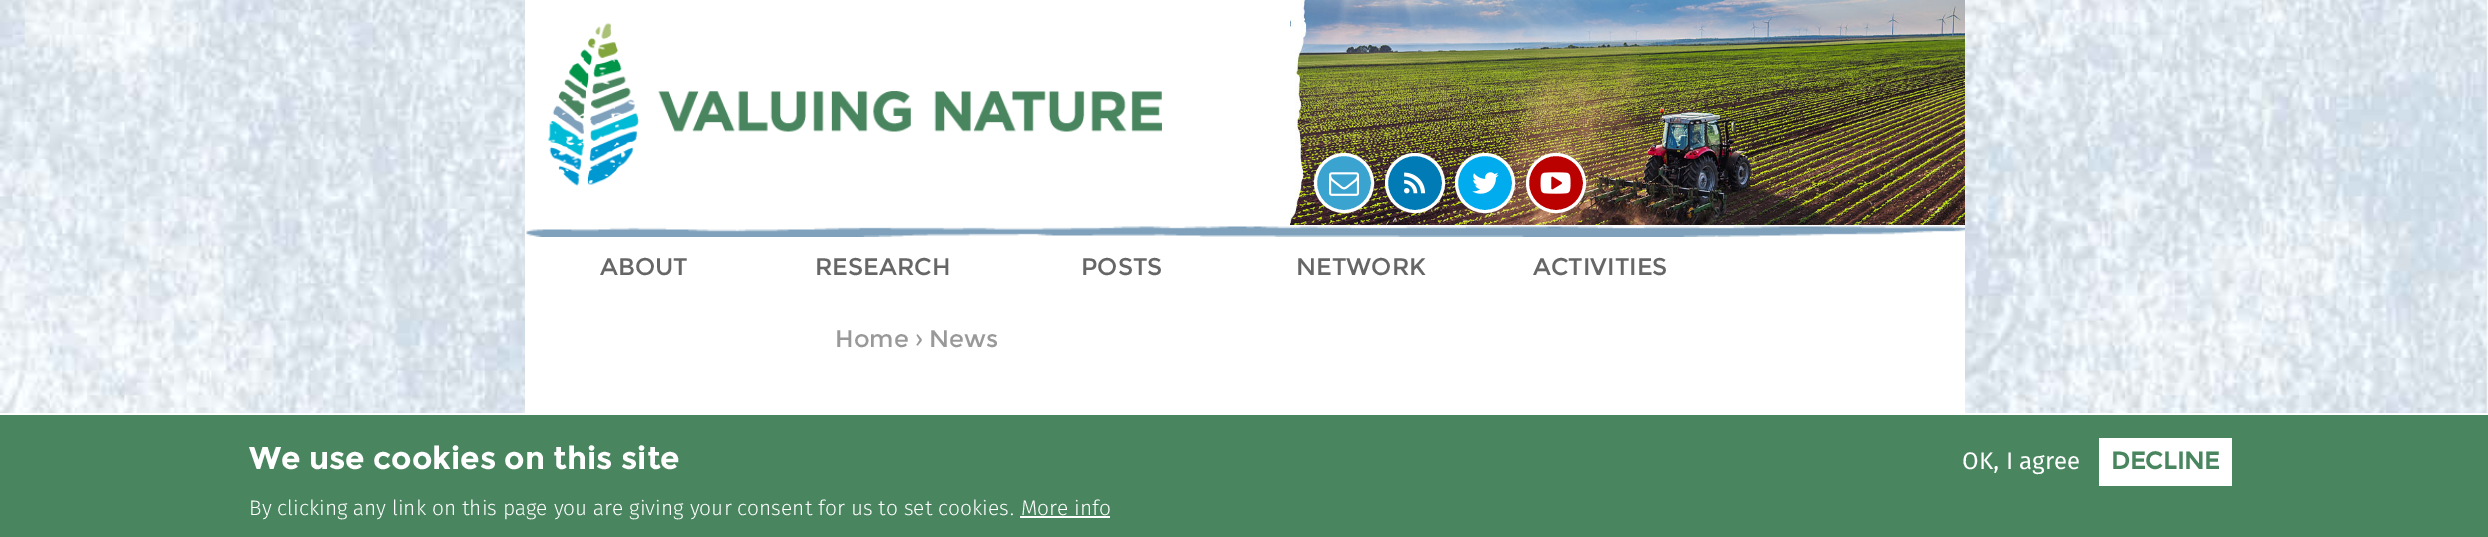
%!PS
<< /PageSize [2488 537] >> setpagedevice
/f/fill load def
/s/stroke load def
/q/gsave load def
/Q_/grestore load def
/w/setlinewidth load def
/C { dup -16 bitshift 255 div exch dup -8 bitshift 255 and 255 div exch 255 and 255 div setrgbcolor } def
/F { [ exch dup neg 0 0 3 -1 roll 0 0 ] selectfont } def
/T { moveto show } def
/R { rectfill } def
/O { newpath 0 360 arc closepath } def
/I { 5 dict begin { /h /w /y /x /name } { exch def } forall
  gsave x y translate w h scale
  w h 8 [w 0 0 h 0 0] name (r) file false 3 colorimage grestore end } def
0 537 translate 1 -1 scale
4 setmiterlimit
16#FFFFFF C
0 0 2488 537 R
(1.rgb) 0 0 2488 413 I
525 0 1440 413 R
(2.rgb) 526 226 1439 11 I
(3.rgb) 548 23 614 163 I
(4.rgb) 1290 0 675 225 I
16#3BA3CF C
1344 183 28.5 O q f Q_
16#FFFFFF C
3 w
s
(5.rgb) 1329 172 31 24 I
16#007BB6 C
1415 183 28.5 O q f Q_
16#FFFFFF C
s
(6.rgb) 1404 172 22 22 I
16#00ACED C
1485 183 28.5 O q f Q_
16#FFFFFF C
s
(7.rgb) 1472 172 27 22 I
16#BB0000 C
1556 183 28.5 O q f Q_
16#FFFFFF C
s
(8.rgb) 1540 172 31 22 I
/Montserrat-Regular 24 F
16#666666 C
(ABOUT) 600 275 T
(RESEARCH) 815 275 T
(POSTS) 1081 275 T
(NETWORK) 1296 275 T
(ACTIVITIES) 1533 275 T
16#999999 C
(Home) 835 347 T
/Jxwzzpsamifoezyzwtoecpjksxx-Regular 24 F
(›) 915 347 T
/Montserrat-Regular 24 F
(News) 929 347 T
16#49865F C
0 415 2488 122 R
/Montserrat-Bold 31.5 F
16#FFFFFF C
(We use cookies on this site) 249 469 T
/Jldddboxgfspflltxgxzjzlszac-Light 21 F
(By clicking any link on this page you are giving your consent for us to set cookies. More info) 249 515 T
1020 516 90 2 R
/Jxwzzpsamifoezyzwtoecpjksxx-Regular 24 F
(OK, I agree) 1962 469 T
2099 438 133 48 R
/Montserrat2-Bold 24 F
16#49865F C
(DECLINE) 2111 469 T
showpage
